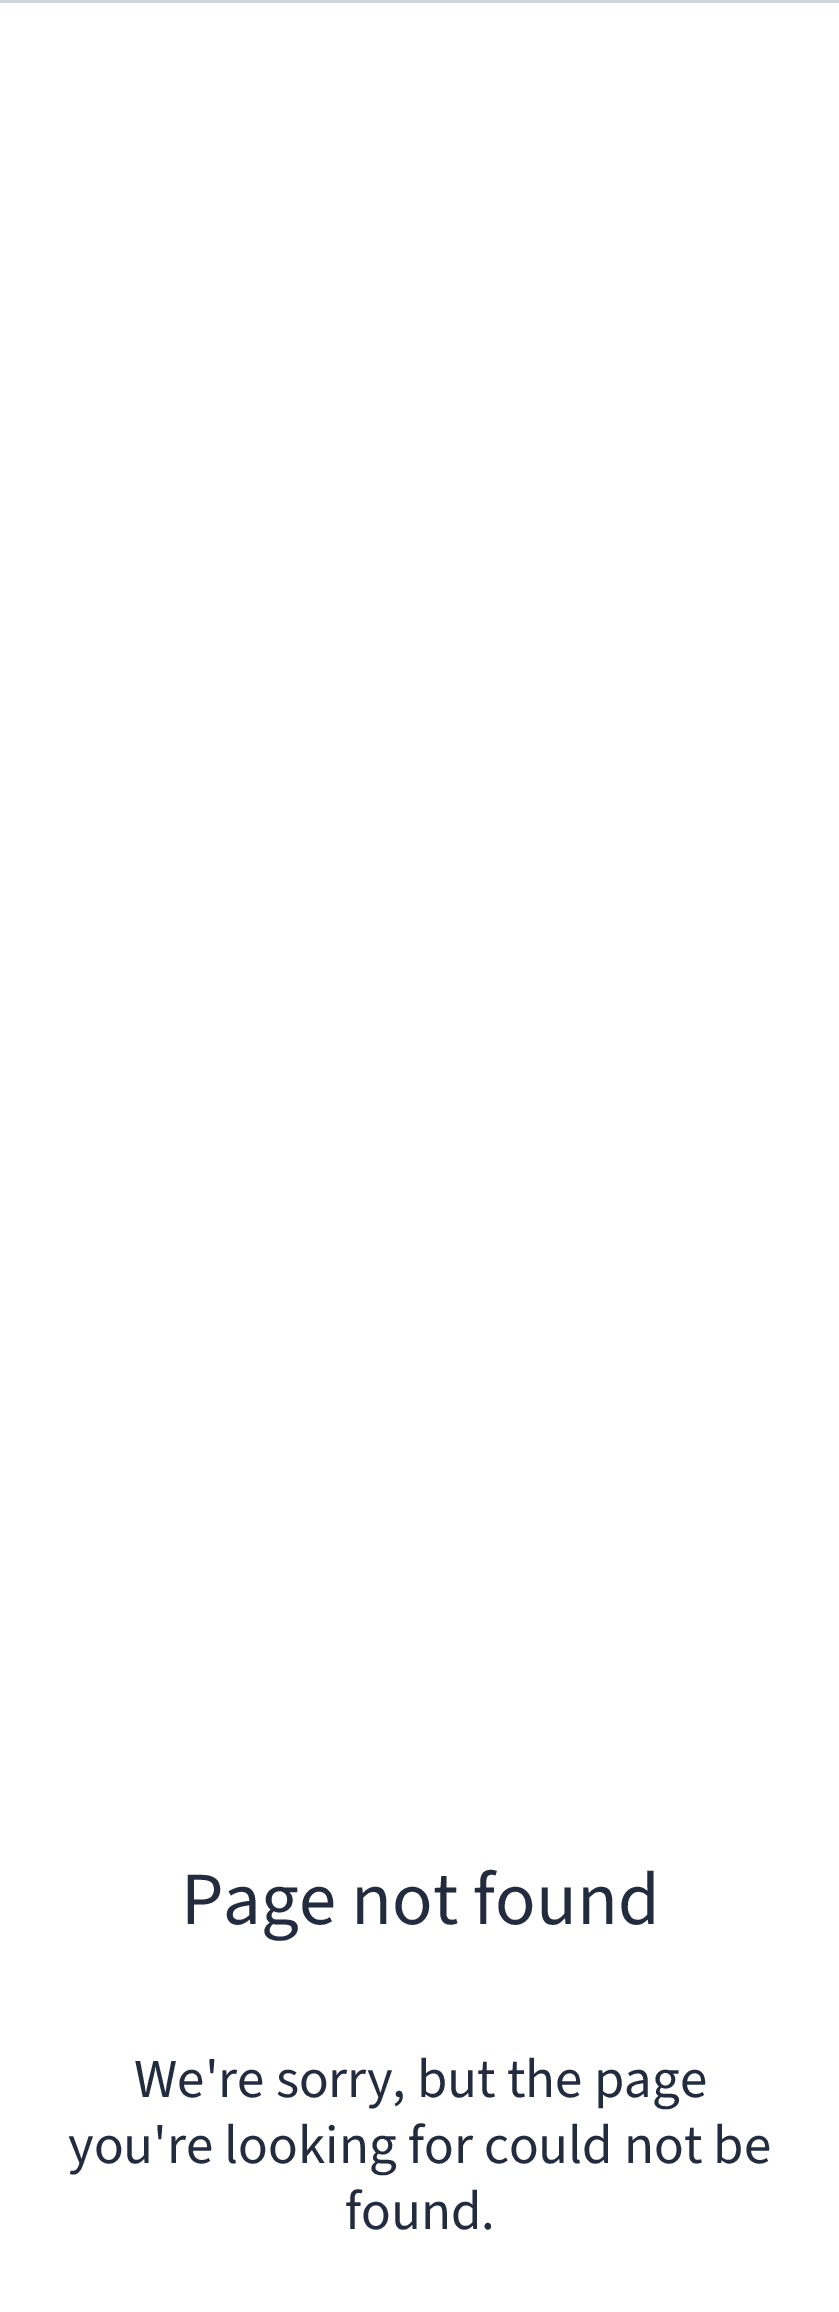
%!PS
<< /PageSize [839 2312] >> setpagedevice
/C { dup -16 bitshift 255 div exch dup -8 bitshift 255 and 255 div exch 255 and 255 div setrgbcolor } def
/F { [ exch dup neg 0 0 3 -1 roll 0 0 ] selectfont } def
/T { moveto show } def
/R { rectfill } def
0 2312 translate 1 -1 scale
4 setmiterlimit
16#FFFFFF C
0 0 839 2312 R
16#D2D6DC C
0 0 839 3 R
/SourceSansPro-Regular 75 F
16#232C3F C
(Page not found) 181 1924 T
/SourceSansPro-Regular 55 F
(We're sorry, but the page) 134 2097 T
(you're looking for could not be) 68 2163 T
(found.) 345 2229 T
showpage
